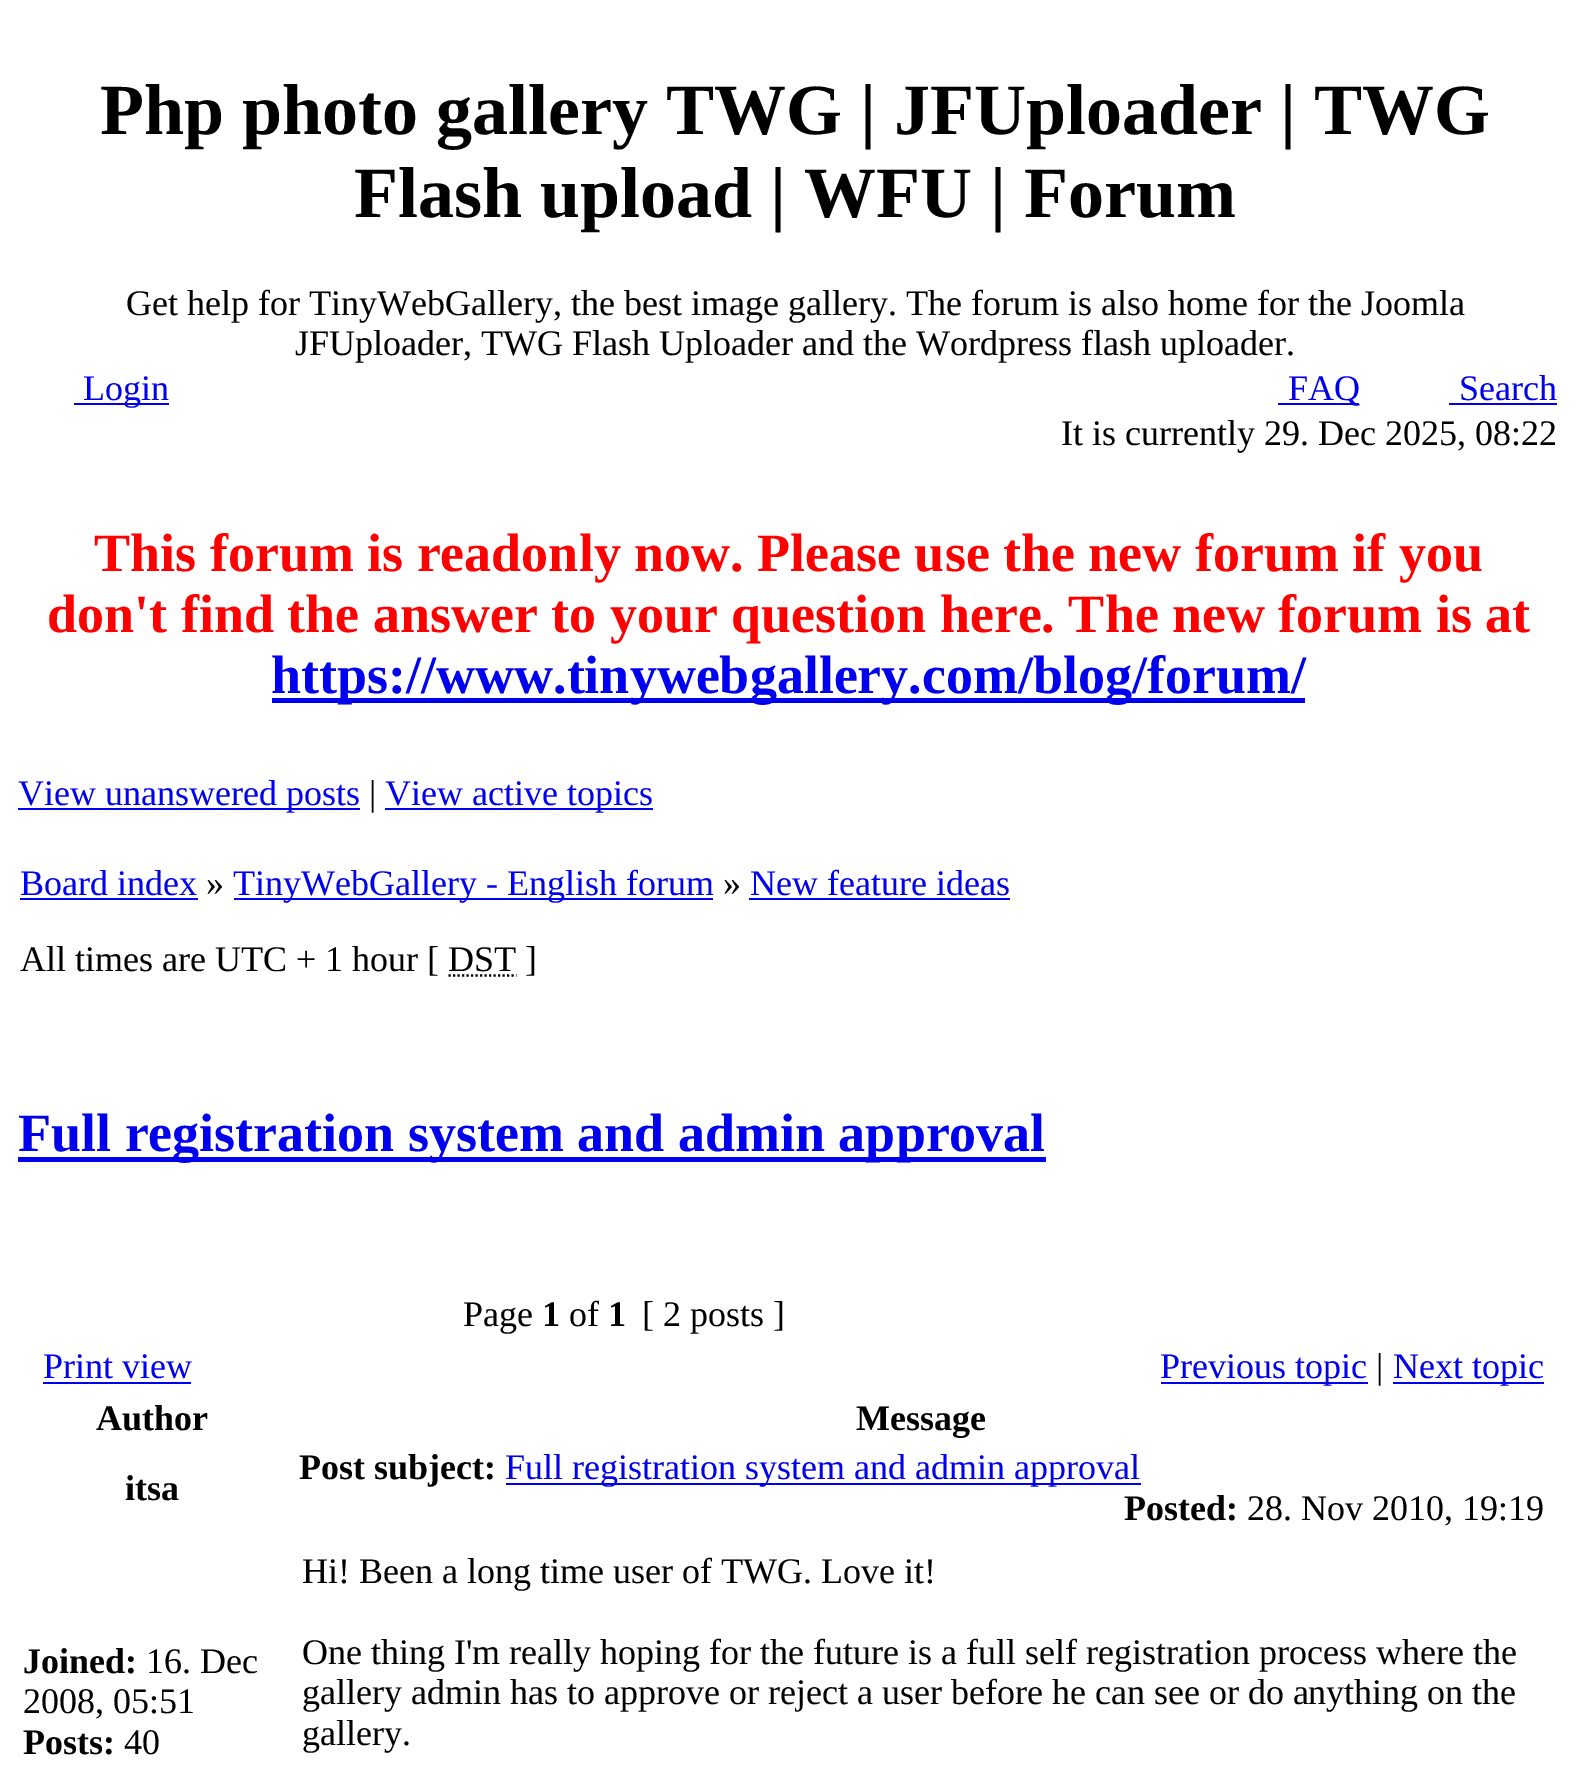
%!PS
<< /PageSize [1576 1779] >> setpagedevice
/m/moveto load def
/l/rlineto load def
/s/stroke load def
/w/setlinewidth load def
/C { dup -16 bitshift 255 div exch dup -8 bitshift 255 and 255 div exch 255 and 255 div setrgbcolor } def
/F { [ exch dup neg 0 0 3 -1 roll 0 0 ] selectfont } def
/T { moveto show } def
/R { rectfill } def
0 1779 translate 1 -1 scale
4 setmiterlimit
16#FFFFFF C
0 0 1576 1779 R
/LiberationSerif-Bold 72 F
16#000000 C
(Php photo gallery TWG | JFUploader | TWG) 100 134 T
(Flash upload | WFU | Forum) 354 217 T
/LiberationSerif-Regular 36 F
(Get help for TinyWebGallery, the best image gallery. The forum is also home for the Joomla) 126 315 T
(JFUploader, TWG Flash Uploader and the Wordpress flash uploader.) 295 355 T
16#0000EE C
74 403 95 2 R
(Login) 83 400 T
1278 403 81 2 R
(FAQ) 1288 400 T
(Search) 1459 400 T
1449 403 108 2 R
16#000000 C
(It is currently 29. Dec 2025, 08:22) 1061 445 T
/LiberationSerif-Bold 54 F
16#FF0000 C
(This forum is readonly now. Please use the new forum if you) 94 571 T
(don't find the answer to your question here. The new forum is at) 47 632 T
16#0000EE C
272 698 1033 5 R
(https://www.tinywebgallery.com/blog/forum/) 271 693 T
18 808 342 2 R
/LiberationSerif-Regular 36 F
(View unanswered posts) 18 805 T
16#000000 C
(|) 369 805 T
16#0000EE C
385 808 268 2 R
(View active topics) 385 805 T
(Board index) 20 895 T
20 898 178 2 R
16#000000 C
(») 206 895 T
16#0000EE C
234 898 479 2 R
(TinyWebGallery - English forum) 233 895 T
16#000000 C
(») 723 895 T
16#0000EE C
(New feature ideas) 750 895 T
749 898 261 2 R
16#000000 C
(All times are UTC + 1 hour [ DST ]) 20 971 T
2.2 w
[2.25 2.25] 0 setdash
448.5 975.5 m 68 0 l s
16#0000EE C
18 1157 1028 5 R
/LiberationSerif-Bold 54 F
(Full registration system and admin approval) 18 1151 T
/LiberationSerif-Regular 36 F
16#000000 C
(Page) 463 1326 T
/LiberationSerif-Bold 36 F
(1) 542 1326 T
/LiberationSerif-Regular 36 F
(of) 569 1326 T
/LiberationSerif-Bold 36 F
(1) 608 1326 T
/LiberationSerif-Regular 36 F
([ 2 posts ]) 642 1326 T
16#0000EE C
(Print view) 43 1378 T
43 1382 148 2 R
1161 1382 207 2 R
(Previous topic) 1160 1378 T
16#000000 C
(|) 1376 1378 T
16#0000EE C
1393 1382 151 2 R
(Next topic) 1393 1378 T
/LiberationSerif-Bold 36 F
16#000000 C
(Author) 96 1430 T
(Message) 856 1430 T
(itsa) 125 1500 T
(Post subject:) 299 1479 T
16#0000EE C
506 1483 635 2 R
/LiberationSerif-Regular 36 F
(Full registration system and admin approval) 505 1479 T
/LiberationSerif-Bold 36 F
16#000000 C
(Posted:) 1124 1520 T
/LiberationSerif-Regular 36 F
(28. Nov 2010, 19:19) 1247 1520 T
/LiberationSerif-Bold 36 F
(Joined:) 23 1673 T
/LiberationSerif-Regular 36 F
(16. Dec) 146 1673 T
(2008, 05:51) 23 1713 T
/LiberationSerif-Bold 36 F
(Posts:) 23 1754 T
/LiberationSerif-Regular 36 F
(40) 124 1754 T
(Hi! Been a long time user of TWG. Love it!) 302 1583 T
(One thing I'm really hoping for the future is a full self registration process where the) 302 1664 T
(gallery admin has to approve or reject a user before he can see or do anything on the) 302 1704 T
(gallery.) 302 1745 T
showpage
